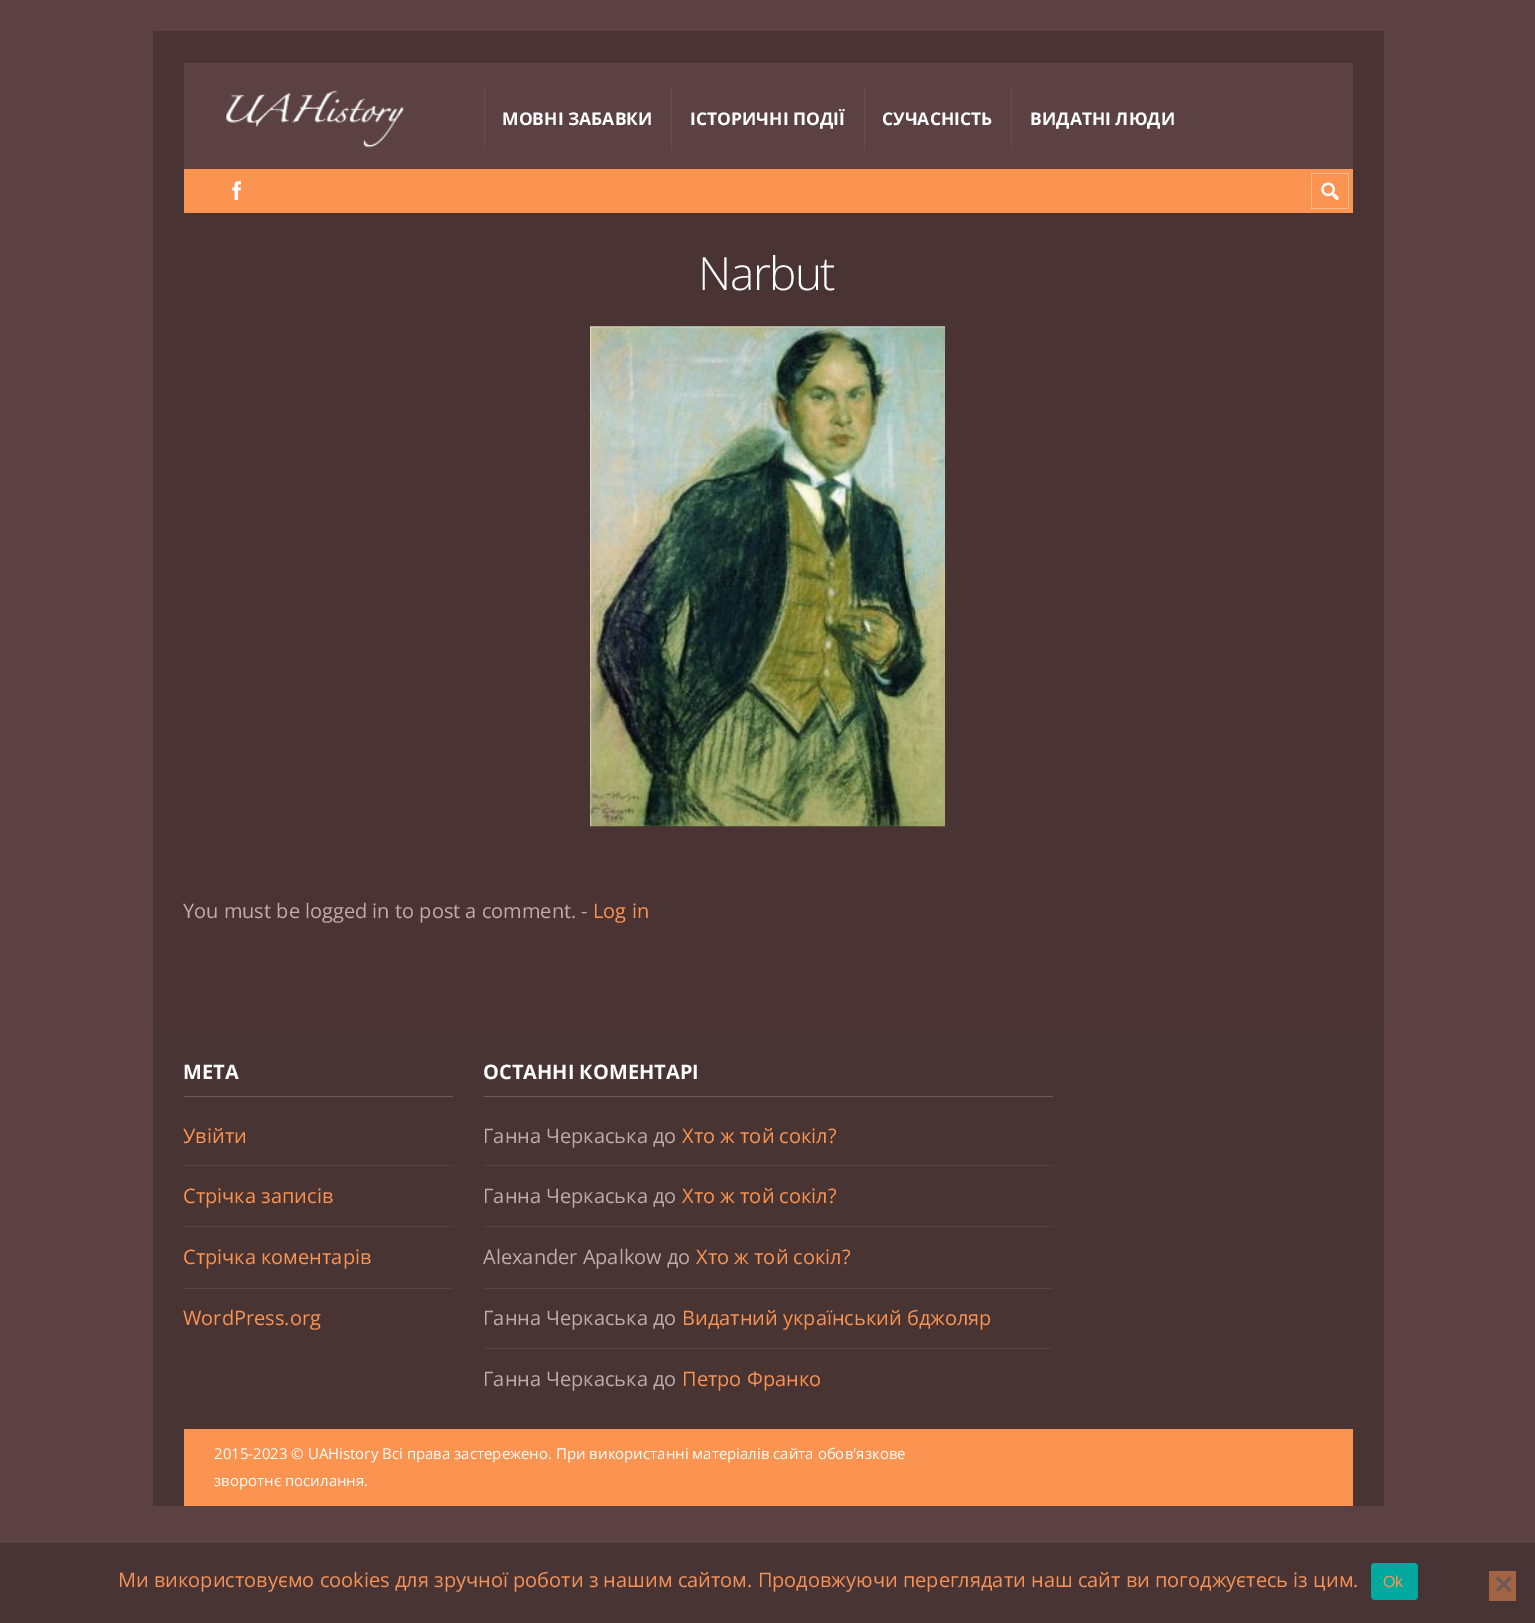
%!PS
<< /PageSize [1535 1623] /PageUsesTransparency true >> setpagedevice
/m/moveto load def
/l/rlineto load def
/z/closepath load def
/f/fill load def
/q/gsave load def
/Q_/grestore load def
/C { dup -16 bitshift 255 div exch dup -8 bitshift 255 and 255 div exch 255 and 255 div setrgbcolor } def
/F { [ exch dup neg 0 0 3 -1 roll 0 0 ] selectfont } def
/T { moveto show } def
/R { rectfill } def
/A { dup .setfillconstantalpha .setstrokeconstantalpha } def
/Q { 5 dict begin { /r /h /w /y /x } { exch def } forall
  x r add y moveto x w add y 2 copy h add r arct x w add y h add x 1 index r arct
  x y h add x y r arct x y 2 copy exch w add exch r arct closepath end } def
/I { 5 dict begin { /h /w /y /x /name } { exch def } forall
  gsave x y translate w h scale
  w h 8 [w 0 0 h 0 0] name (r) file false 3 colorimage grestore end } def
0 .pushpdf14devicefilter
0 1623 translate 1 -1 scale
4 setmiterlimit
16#5B4141 C
0 0 1535 1623 R
16#493333 C
153 31 1231 994 R
16#5B4141 C
184 63 1169 106 R
(1.rgb) 226 90 178 58 I
16#664E4E C
484 88 1 62 R
/OpenSans-Bold 17.5 F
16#FFFFFF C
(МОВНІ ЗАБАВКИ) 502 125 T
16#664E4E C
671 88 1 62 R
16#FFFFFF C
(ІСТОРИЧНІ ПОДІЇ) 690 125 T
16#664E4E C
864 88 1 62 R
16#FFFFFF C
(СУЧАСНІСТЬ) 882 125 T
16#664E4E C
1011 88 1 62 R
16#FFFFFF C
(ВИДАТНІ ЛЮДИ) 1030 125 T
16#FB9351 C
184 169 1169 44 R
(2.rgb) 232 181 9 19 I
q
1311 173 38 36 rectclip
16#FCB98E C
1188 49 m 284 0 l 0 283 l -284 0 l z 1310 171 m 38 0 l 0 37 l -38 0 l z eofill
0.35 A
16#FFFFFF C
1188 49 m 284 0 l 0 283 l -284 0 l z 1312 174 m 38 0 l 0 36 l -38 0 l z eofill
Q_
(3.rgb) 1321 182 18 18 I
/OpenSans-Light 46 F
16#FFFFFF C
698 290 m -1.5 0 (Narbut) ashow
(4.rgb) 590 326 355 501 I
/OpenSans-Regular 20 F
16#C0ABAB C
(You must be logged in to post a comment. -) 183 918 T
16#FB9351 C
(Log in) 593 918 T
16#493434 C
153 1025 1231 481 R
16#6D5D5D C
184 1096 269 1 R
/OpenSans-Bold 20 F
16#FFFFFF C
(МЕТА) 183 1079 T
/OpenSans-Regular 20 F
16#FB9351 C
(Увійти) 183 1143 T
16#564242 C
184 1165 269 1 R
16#FB9351 C
(Стрічка записів) 183 1203 T
16#564242 C
184 1226 269 1 R
16#FB9351 C
(Стрічка коментарів) 183 1264 T
16#564242 C
184 1288 269 1 R
16#FB9351 C
(WordPress.org) 183 1325 T
16#6D5D5D C
484 1096 569 1 R
/OpenSans-Bold 20 F
16#FFFFFF C
(ОСТАННІ КОМЕНТАРІ) 483 1079 T
/OpenSans-Regular 20 F
16#C0ABAB C
(Ганна Черкаська до) 483 1143 T
16#FB9351 C
(Хто ж той сокіл?) 682 1143 T
16#564242 C
484 1165 569 1 R
16#C0ABAB C
(Ганна Черкаська до) 483 1203 T
16#FB9351 C
(Хто ж той сокіл?) 682 1203 T
16#564242 C
484 1226 569 1 R
16#C0ABAB C
(Alexander Apalkow до) 483 1264 T
16#FB9351 C
(Хто ж той сокіл?) 696 1264 T
16#564242 C
484 1288 569 1 R
16#C0ABAB C
(Ганна Черкаська до) 483 1325 T
16#FB9351 C
(Видатний український бджоляр) 682 1325 T
16#564242 C
484 1348 569 1 R
16#C0ABAB C
(Ганна Черкаська до) 483 1386 T
16#FB9351 C
(Петро Франко) 682 1386 T
184 1429 1169 77 R
/OpenSans-Regular 15 F
16#FFFFFF C
(2015-2023 © UAHistory Всі права застережено. При використанні матеріалів сайта обов'язкове) 214 1459 T
(зворотнє посилання.) 214 1486 T
16#483434 C
0 1543 1535 80 R
/OpenSans-Regular 20 F
16#F89358 C
(Ми використовуємо cookies для зручної роботи з нашим сайтом. Продовжуючи переглядати наш сайт ви погоджуєтесь із цим.) 118 1587 T
16#00A99D C
1371 1563 47 37 4 Q f
/LiberationSans-Regular 16 F
16#F89358 C
(Ok) 1383 1587 T
16#A26443 C
1489 1571 27 30 R
16#645A5A C
1509.5 1576.5 m 2 2 l -13.5 13 l -2 -1.5 l z f
1496 1578.5 m 2 -2 l 13.5 13.5 l -2 1.5 l z f
.poppdf14devicefilter showpage
